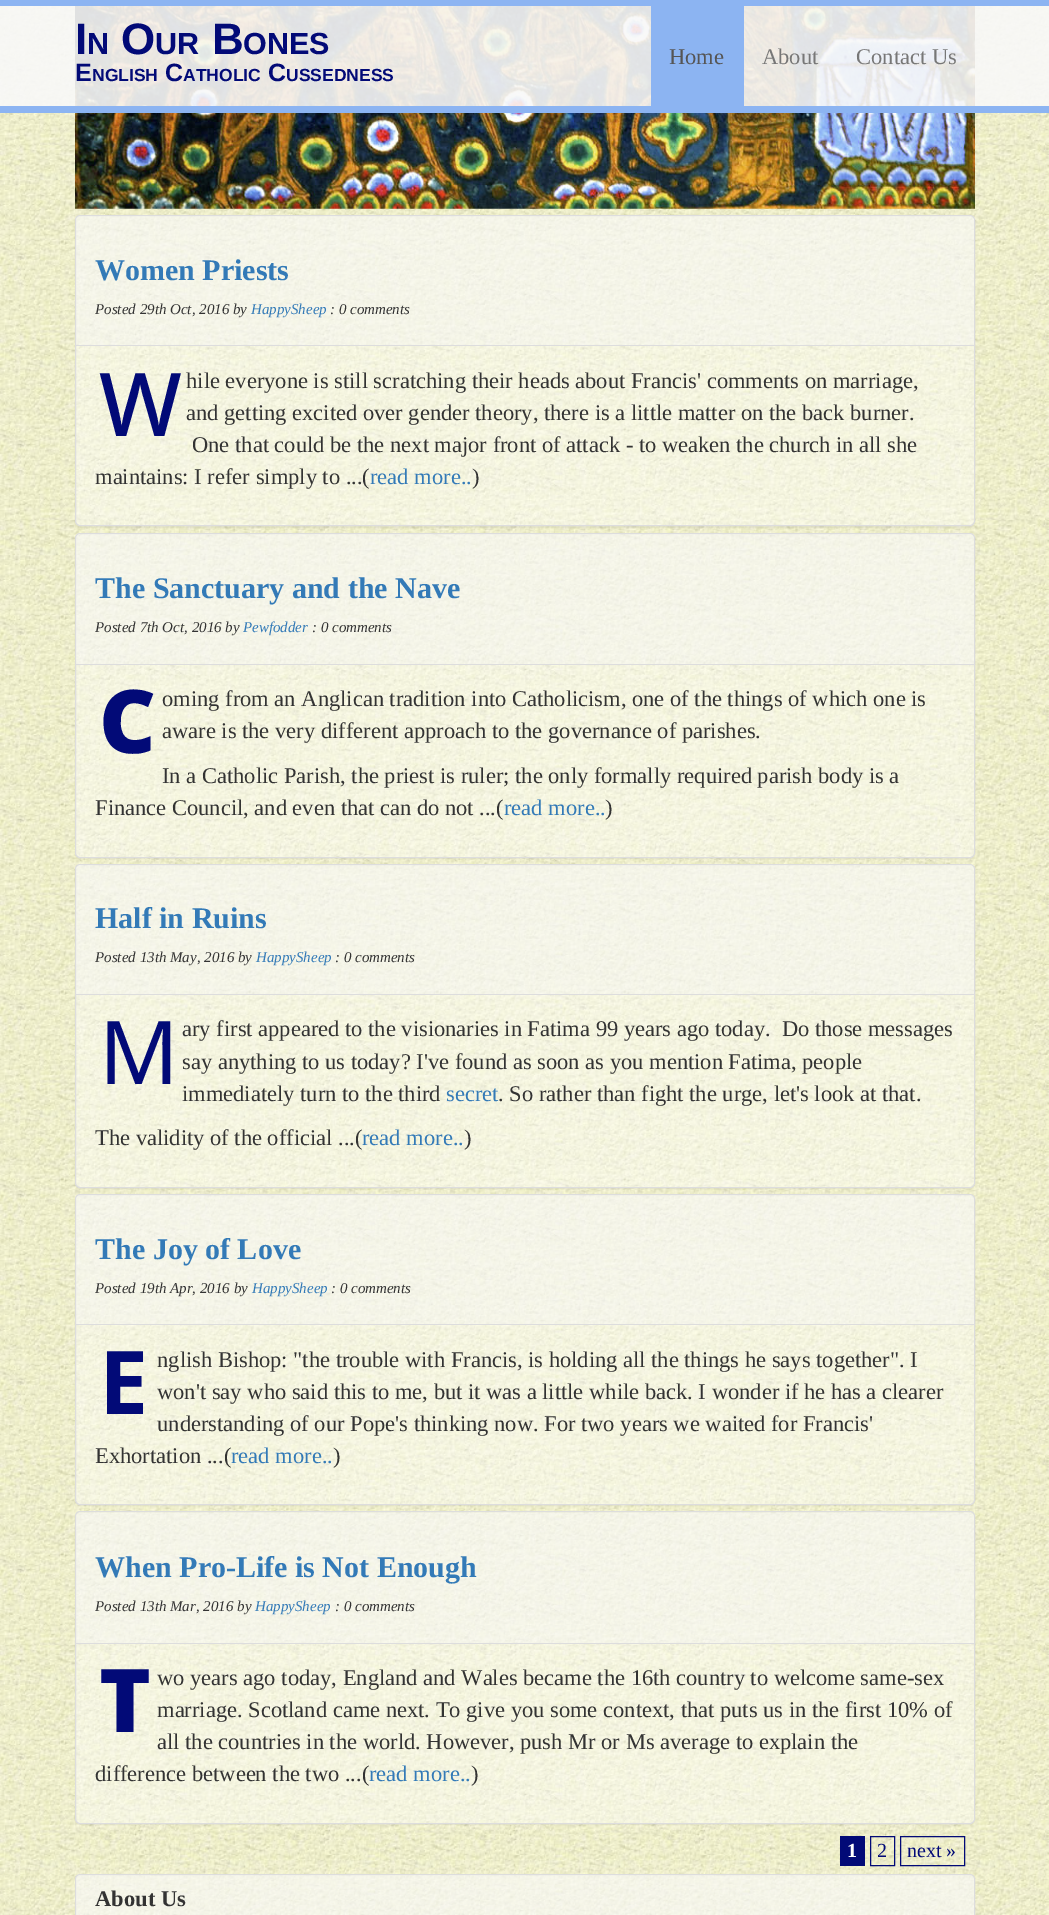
%!PS
<< /PageSize [1049 1915] /PageUsesTransparency true >> setpagedevice
/m/moveto load def
/l/rlineto load def
/c/rcurveto load def
/z/closepath load def
/f/fill load def
/s/stroke load def
/q/gsave load def
/Q_/grestore load def
/C { dup -16 bitshift 255 div exch dup -8 bitshift 255 and 255 div exch 255 and 255 div setrgbcolor } def
/F { [ exch dup neg 0 0 3 -1 roll 0 0 ] selectfont } def
/T { moveto show } def
/R { rectfill } def
/A { dup .setfillconstantalpha .setstrokeconstantalpha } def
/Q { 5 dict begin { /r /h /w /y /x } { exch def } forall
  x r add y moveto x w add y 2 copy h add r arct x w add y h add x 1 index r arct
  x y h add x y r arct x y 2 copy exch w add exch r arct closepath end } def
/S { 12 dict begin { /a /b /q /h /w /y /x } { exch def } forall gsave /was 0 def
  9 -2 -9 { dup b mul 4 div /e exch def 1 sub .425 mul 2.718 exch exp 1 add a .99 .min exch div /now exch def
    1 1 now sub 1 was sub div sub A /was now def
    w h .min e 2 mul add 0 gt { x e sub y e sub w e 2 mul add h e 2 mul add
      q e add b .6 mul add w h .min 2 div e add .min 0 .max Q fill } if } for grestore end } def
/I { 5 dict begin { /h /w /y /x /name } { exch def } forall
  gsave x y translate w h scale
  w h 8 [w 0 0 h 0 0] name (r) file false 3 colorimage grestore end } def
0 .pushpdf14devicefilter
0 1915 translate 1 -1 scale
4 setmiterlimit
16#FFFFFF C
0 0 1049 1915 R
(1.rgb) 0 6 1049 1909 I
(2.rgb) 75 6 900 203 I
0.9 A
16#F8F8F8 C
0 6 1049 100 R
1 A
16#8CB4F2 C
0 0 1049 6 R
0 106 1049 7 R
/LiberationSans-Bold 44 F
16#020A77 C
(I) 75 54 T
/LiberationSans-Bold 30.5 F
(N) 87 54 T
/LiberationSans-Bold 44 F
(O) 121 54 T
/LiberationSans-Bold 30.5 F
(UR) 155 54 T
/LiberationSans-Bold 44 F
(B) 212 54 T
/LiberationSans-Bold 30.5 F
(ONES) 243 54 T
/LiberationSans-Bold 25 F
(E) 75 81 T
/LiberationSans-Bold 17.5 F
(NGLISH) 92 81 T
/LiberationSans-Bold 25 F
(C) 165 81 T
/LiberationSans-Bold 17.5 F
(ATHOLIC) 183 81 T
/LiberationSans-Bold 25 F
(C) 268 81 T
/LiberationSans-Bold 17.5 F
(USSEDNESS) 286 81 T
16#8CB4F2 C
651 6 93 100 R
/LiberationSerif-Regular 22.5 F
16#555555 C
(Home) 669 64 T
16#777777 C
(About) 762 64 T
(Contact Us) 856 64 T
q
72 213 m 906 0 l 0 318 l -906 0 l z 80 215 m 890 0 l 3 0 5 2 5 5 c 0 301 l 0 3 -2 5 -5 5 c -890 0 l -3 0 -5 -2 -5 -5 c 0 -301 l 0 -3 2 -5 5 -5 c z eoclip newpath
16#000000 C
75 216 900 312 5 .5 .05 S
Q_
0.4 A
16#FFFFFF C
75.5 215.5 899 310 4.5 Q f
1 A
16#DDDDDD C
75.5 215.5 899 310 4.5 Q s
0.4 A
16#F5F5F5 C
80 216 m 890 0 l 2 0 4 2 4 4 c 0 126 l -898 0 l 0 -126 l 0 -2 2 -4 4 -4 c z f
1 A
16#DDDDDD C
76 345 898 1 R
/LiberationSerif-Bold 30 F
16#337AB7 C
(Women Priests) 95 280 T
/LiberationSerif-Italic 15 F
16#333333 C
(Posted 29th Oct, 2016 by) 95 314 T
16#337AB7 C
(HappySheep) 251 314 T
16#333333 C
(: 0 comments) 330 314 T
/NotoSans-Medium 88 F
16#020A77 C
(W) 99 436 T
/LiberationSerif-Regular 22.5 F
16#333333 C
(hile everyone is still scratching their heads about Francis' comments on marriage,) 186 388 T
(and getting excited over gender theory, there is a little matter on the back burner.) 186 420 T
(One that could be the next major front of attack - to weaken the church in all she) 192 452 T
(maintains: I refer simply to ...\() 95 484 T
16#337AB7 C
(read more..) 370 484 T
16#333333 C
(\)) 472 484 T
q
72 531 m 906 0 l 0 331 l -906 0 l z 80 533 m 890 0 l 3 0 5 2 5 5 c 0 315 l 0 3 -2 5 -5 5 c -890 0 l -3 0 -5 -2 -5 -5 c 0 -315 l 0 -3 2 -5 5 -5 c z eoclip newpath
16#000000 C
75 534 900 325 5 .5 .05 S
Q_
0.4 A
16#FFFFFF C
75.5 533.5 899 324 4.5 Q f
1 A
16#DDDDDD C
75.5 533.5 899 324 4.5 Q s
0.4 A
16#F5F5F5 C
80 534 m 890 0 l 2 0 4 2 4 4 c 0 127 l -898 0 l 0 -127 l 0 -2 2 -4 4 -4 c z f
1 A
16#DDDDDD C
76 664 898 1 R
/LiberationSerif-Bold 30 F
16#337AB7 C
(The Sanctuary and the Nave) 95 598 T
/LiberationSerif-Italic 15 F
16#333333 C
(Posted 7th Oct, 2016 by) 95 632 T
16#337AB7 C
(Pewfodder) 243 632 T
16#333333 C
(: 0 comments) 312 632 T
/NotoSans-Black 88 F
16#020A77 C
(C) 99 753 T
/LiberationSerif-Regular 22.5 F
16#333333 C
(oming from an Anglican tradition into Catholicism, one of the things of which one is) 162 706 T
(aware is the very different approach to the governance of parishes.) 162 738 T
(In a Catholic Parish, the priest is ruler; the only formally required parish body is a) 162 783 T
(Finance Council, and even that can do not ...\() 95 815 T
16#337AB7 C
(read more..) 504 815 T
16#333333 C
(\)) 605 815 T
q
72 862 m 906 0 l 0 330 l -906 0 l z 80 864 m 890 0 l 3 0 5 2 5 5 c 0 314 l 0 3 -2 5 -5 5 c -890 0 l -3 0 -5 -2 -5 -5 c 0 -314 l 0 -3 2 -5 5 -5 c z eoclip newpath
16#000000 C
75 865 900 324 5 .5 .05 S
Q_
0.4 A
16#FFFFFF C
75.5 864.5 899 323 4.5 Q f
1 A
16#DDDDDD C
75.5 864.5 899 323 4.5 Q s
0.4 A
16#F5F5F5 C
80 865 m 890 0 l 2 0 4 2 4 4 c 0 126 l -898 0 l 0 -126 l 0 -2 2 -4 4 -4 c z f
1 A
16#DDDDDD C
76 994 898 1 R
/LiberationSerif-Bold 30 F
16#337AB7 C
(Half in Ruins) 95 928 T
/LiberationSerif-Italic 15 F
16#333333 C
(Posted 13th May, 2016 by) 95 962 T
16#337AB7 C
(HappySheep) 256 962 T
16#333333 C
(: 0 comments) 335 962 T
/NotoSans-Regular 88 F
16#020A77 C
(M) 99 1084 T
/LiberationSerif-Regular 22.5 F
16#333333 C
(ary first appeared to the visionaries in Fatima 99 years ago today.  Do those messages) 182 1036 T
(say anything to us today? I've found as soon as you mention Fatima, people) 182 1069 T
(immediately turn to the third) 182 1101 T
16#337AB7 C
(secret) 446 1101 T
16#333333 C
(. So rather than fight the urge, let's look at that.) 498 1101 T
(The validity of the official ...\() 95 1145 T
16#337AB7 C
(read more..) 362 1145 T
16#333333 C
(\)) 464 1145 T
q
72 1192 m 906 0 l 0 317 l -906 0 l z 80 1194 m 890 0 l 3 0 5 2 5 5 c 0 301 l 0 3 -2 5 -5 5 c -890 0 l -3 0 -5 -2 -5 -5 c 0 -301 l 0 -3 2 -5 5 -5 c z eoclip newpath
16#000000 C
75 1195 900 311 5 .5 .05 S
Q_
0.4 A
16#FFFFFF C
75.5 1194.5 899 310 4.5 Q f
1 A
16#DDDDDD C
75.5 1194.5 899 310 4.5 Q s
0.4 A
16#F5F5F5 C
80 1195 m 890 0 l 2 0 4 2 4 4 c 0 126 l -898 0 l 0 -126 l 0 -2 2 -4 4 -4 c z f
1 A
16#DDDDDD C
76 1324 898 1 R
/LiberationSerif-Bold 30 F
16#337AB7 C
(The Joy of Love) 95 1259 T
/LiberationSerif-Italic 15 F
16#333333 C
(Posted 19th Apr, 2016 by) 95 1293 T
16#337AB7 C
(HappySheep) 252 1293 T
16#333333 C
(: 0 comments) 331 1293 T
/NotoSans-Bold 88 F
16#020A77 C
(E) 99 1414 T
/LiberationSerif-Regular 22.5 F
16#333333 C
(nglish Bishop: "the trouble with Francis, is holding all the things he says together". I) 157 1367 T
(won't say who said this to me, but it was a little while back. I wonder if he has a clearer) 157 1399 T
(understanding of our Pope's thinking now. For two years we waited for Francis') 157 1431 T
(Exhortation ...\() 95 1463 T
16#337AB7 C
(read more..) 231 1463 T
16#333333 C
(\)) 333 1463 T
q
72 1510 m 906 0 l 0 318 l -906 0 l z 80 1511 m 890 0 l 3 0 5 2 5 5 c 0 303 l 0 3 -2 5 -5 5 c -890 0 l -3 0 -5 -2 -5 -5 c 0 -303 l 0 -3 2 -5 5 -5 c z eoclip newpath
16#000000 C
75 1513 900 312 5 .5 .05 S
Q_
0.4 A
16#FFFFFF C
75.5 1511.5 899 312 4.5 Q f
1 A
16#DDDDDD C
75.5 1511.5 899 312 4.5 Q s
0.4 A
16#F5F5F5 C
80 1513 m 890 0 l 2 0 4 2 4 4 c 0 127 l -898 0 l 0 -127 l 0 -2 2 -4 4 -4 c z f
1 A
16#DDDDDD C
76 1643 898 1 R
/LiberationSerif-Bold 30 F
16#337AB7 C
(When Pro-Life is Not Enough) 95 1577 T
/LiberationSerif-Italic 15 F
16#333333 C
(Posted 13th Mar, 2016 by) 95 1611 T
16#337AB7 C
(HappySheep) 255 1611 T
16#333333 C
(: 0 comments) 335 1611 T
/NotoSans-Black 88 F
16#020A77 C
(T) 99 1732 T
/LiberationSerif-Regular 22.5 F
16#333333 C
(wo years ago today, England and Wales became the 16th country to welcome same-sex) 157 1685 T
(marriage. Scotland came next. To give you some context, that puts us in the first 10% of) 157 1717 T
(all the countries in the world. However, push Mr or Ms average to explain the) 157 1749 T
(difference between the two ...\() 95 1781 T
16#337AB7 C
(read more..) 369 1781 T
16#333333 C
(\)) 471 1781 T
16#020A77 C
840 1836 25 30 R
/LiberationSerif-Bold 20 F
16#FFFFFF C
(1) 847 1857 T
16#020A77 C
870.5 1836.5 24 29 rectstroke
/LiberationSerif-Regular 20 F
(2) 877 1857 T
900.5 1836.5 64 29 rectstroke
(next ») 907 1857 T
0.4 A
16#FFFFFF C
75.5 1874.5 899 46 4.5 Q f
1 A
16#DDDDDD C
75.5 1874.5 899 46 4.5 Q s
0.4 A
16#F5F5F5 C
80 1875 m 890 0 l 2 0 4 2 4 4 c 0 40 l -898 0 l 0 -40 l 0 -2 2 -4 4 -4 c z f
/LiberationSerif-Bold 22.5 F
1 A
16#333333 C
(About Us) 95 1906 T
.poppdf14devicefilter showpage
